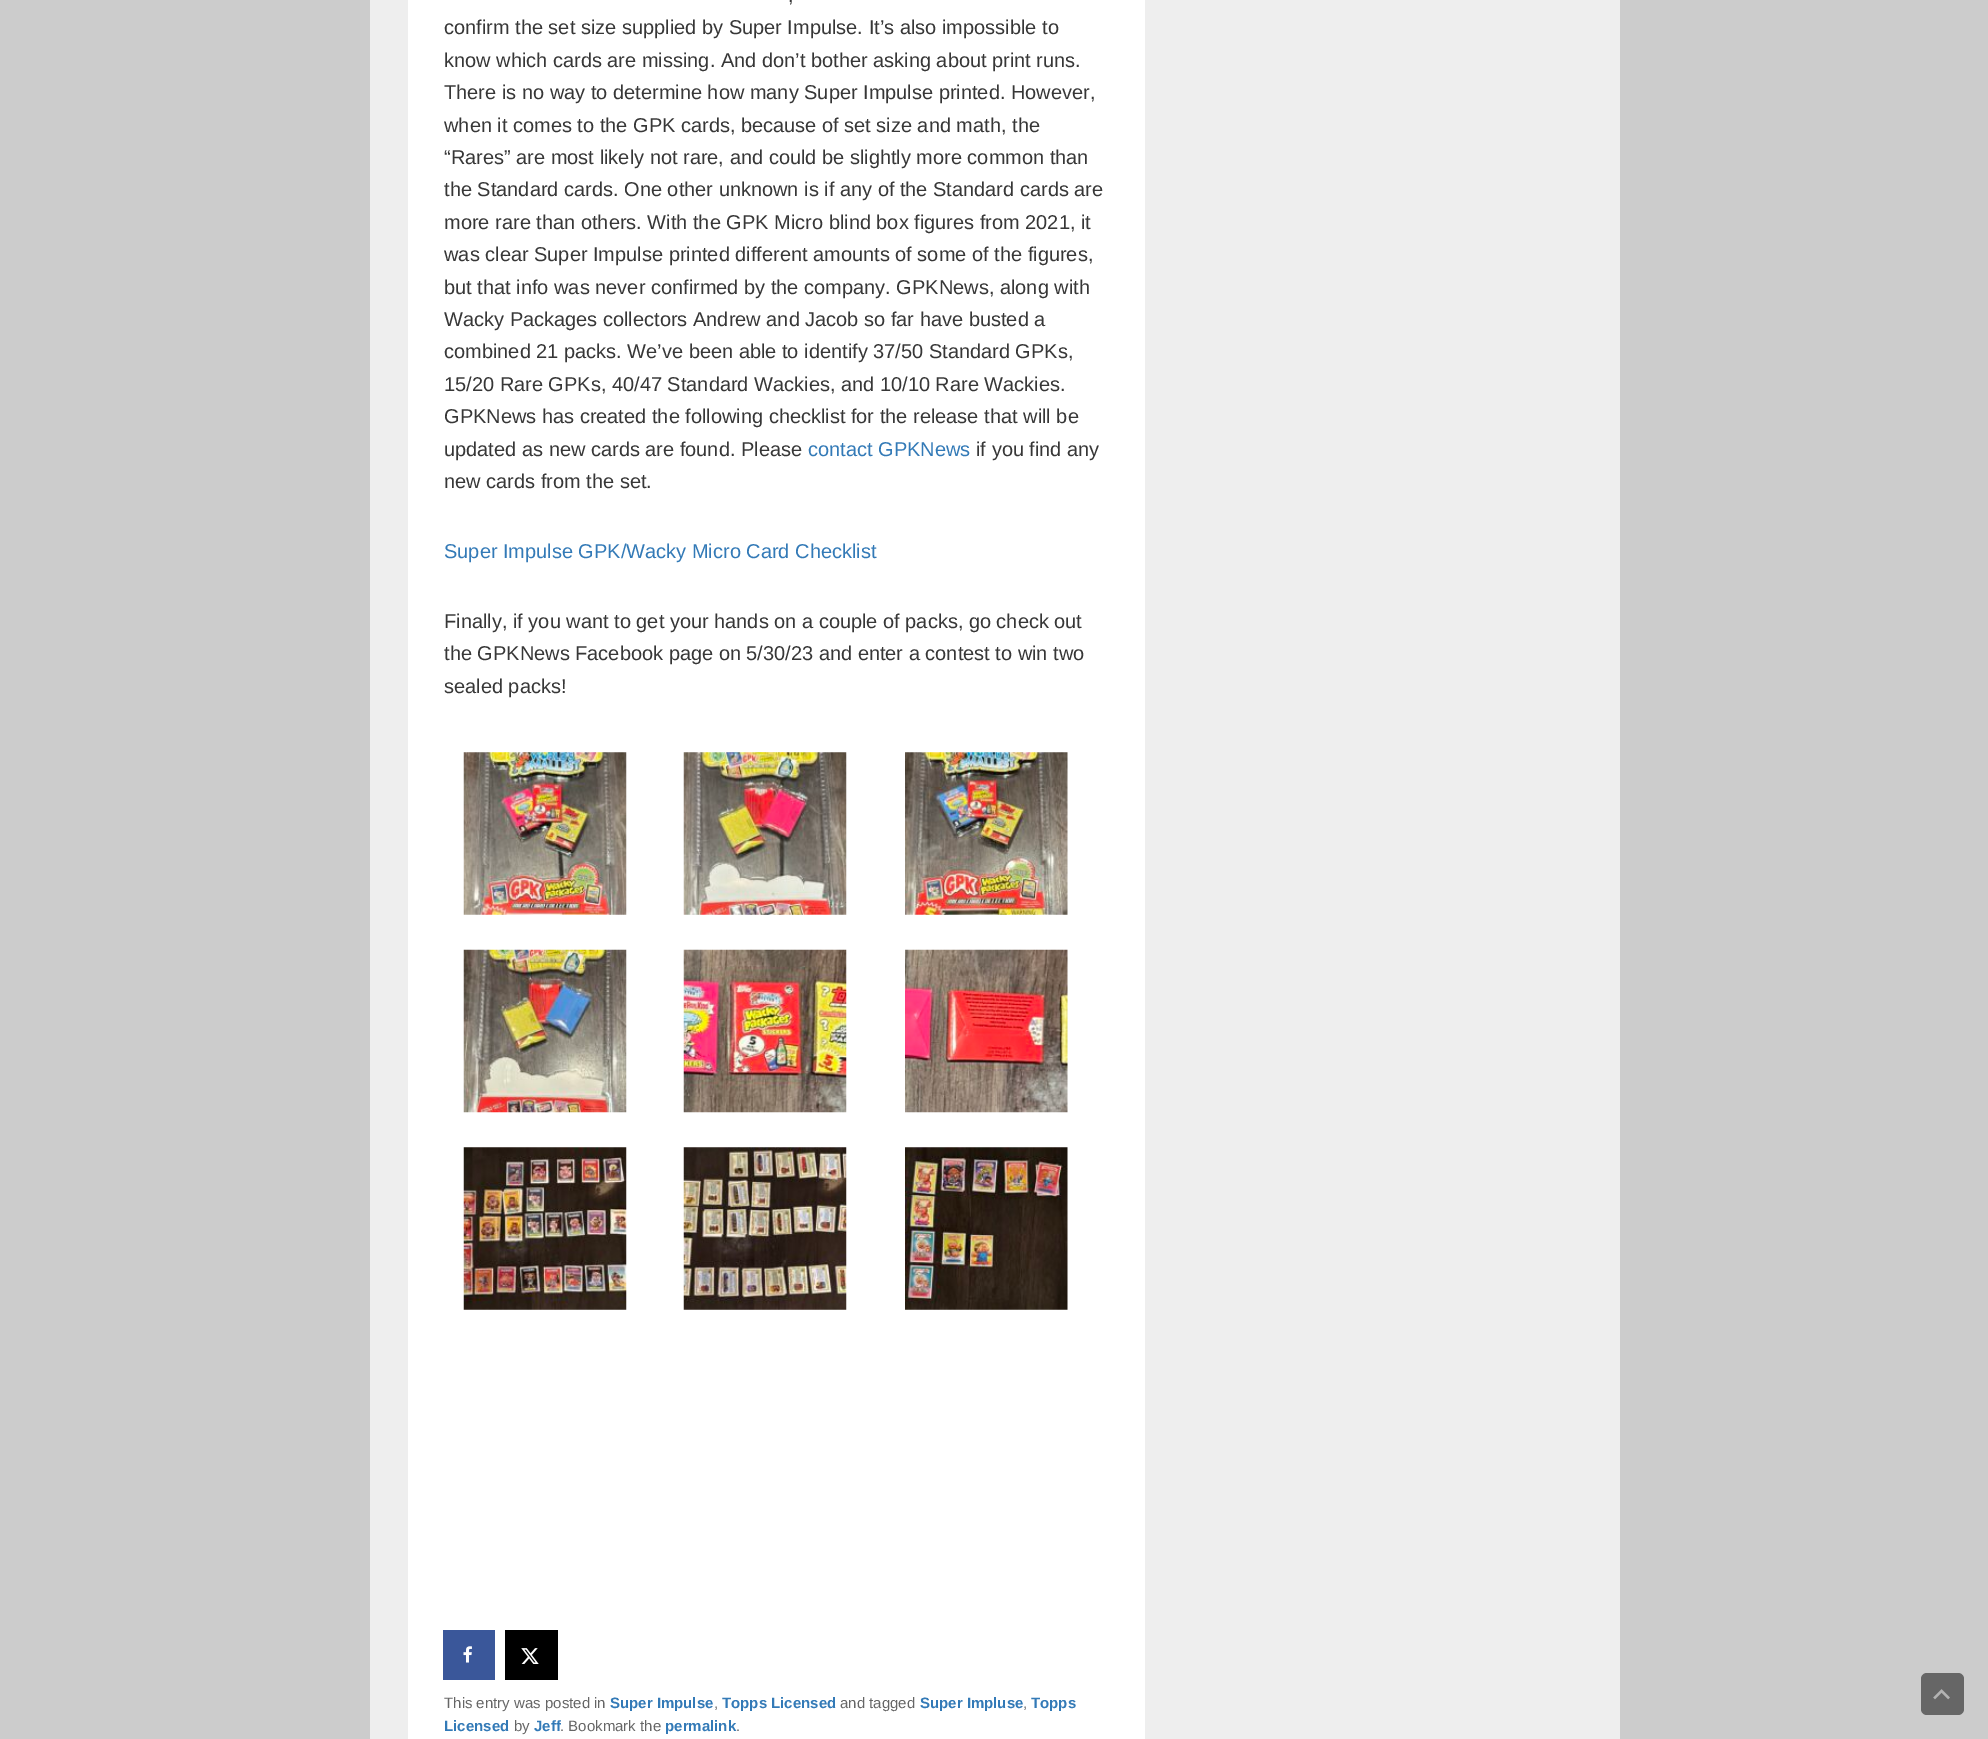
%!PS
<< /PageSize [1988 1739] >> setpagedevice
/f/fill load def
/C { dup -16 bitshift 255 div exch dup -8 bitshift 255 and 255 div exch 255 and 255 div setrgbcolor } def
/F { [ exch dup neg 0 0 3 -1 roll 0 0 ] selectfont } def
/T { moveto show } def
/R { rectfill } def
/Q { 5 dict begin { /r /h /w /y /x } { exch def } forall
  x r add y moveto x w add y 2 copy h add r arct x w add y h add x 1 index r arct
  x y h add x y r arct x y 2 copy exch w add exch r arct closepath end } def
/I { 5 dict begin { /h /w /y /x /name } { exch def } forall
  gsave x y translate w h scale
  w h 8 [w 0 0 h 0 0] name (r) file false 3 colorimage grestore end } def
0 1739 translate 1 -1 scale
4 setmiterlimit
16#CCCCCC C
0 0 1988 1739 R
16#EEEEEE C
370 0 1250 1739 R
16#FFFFFF C
408 0 737 1739 R
/LiberationSans-Regular 20 F
16#373737 C
(,) 788 2 T
(confirm the set size supplied by Super Impulse. It’s also impossible to) 444 34 T
(know which cards are missing. And don’t bother asking about print runs.) 444 67 T
(There is no way to determine how many Super Impulse printed. However,) 444 99 T
(when it comes to the GPK cards, because of set size and math, the) 444 132 T
(“Rares” are most likely not rare, and could be slightly more common than) 444 164 T
(the Standard cards. One other unknown is if any of the Standard cards are) 444 196 T
(more rare than others. With the GPK Micro blind box figures from 2021, it) 444 229 T
(was clear Super Impulse printed different amounts of some of the figures,) 444 261 T
(but that info was never confirmed by the company. GPKNews, along with) 444 294 T
(Wacky Packages collectors Andrew and Jacob so far have busted a) 444 326 T
(combined 21 packs. We’ve been able to identify 37/50 Standard GPKs,) 444 358 T
(15/20 Rare GPKs, 40/47 Standard Wackies, and 10/10 Rare Wackies.) 444 391 T
(GPKNews has created the following checklist for the release that will be) 444 423 T
(updated as new cards are found. Please) 444 456 T
16#337AB7 C
(contact GPKNews) 808 456 T
16#373737 C
(if you find any) 976 456 T
(new cards from the set.) 444 488 T
16#337AB7 C
(Super Impulse GPK/Wacky Micro Card Checklist) 444 558 T
16#373737 C
(Finally, if you want to get your hands on a couple of packs, go check out) 444 628 T
(the GPKNews Facebook page on 5/30/23 and enter a contest to win two) 444 660 T
(sealed packs!) 444 693 T
(1.rgb) 463 752 164 163 I
(2.rgb) 683 752 164 163 I
(3.rgb) 905 752 163 163 I
(4.rgb) 463 949 164 164 I
(5.rgb) 683 949 164 164 I
(6.rgb) 905 949 163 164 I
(7.rgb) 463 1147 164 163 I
(8.rgb) 683 1147 164 163 I
(9.rgb) 905 1147 163 163 I
16#3A579A C
443 1630 52 50 R
(10.rgb) 463 1646 9 17 I
16#000000 C
505 1630 53 50 R
(11.rgb) 521 1648 18 16 I
/LiberationSans-Regular 15 F
16#666666 C
(This entry was posted in) 444 1708 T
/LiberationSans-Bold 15 F
16#337AB7 C
(Super Impulse) 610 1708 T
/LiberationSans-Regular 15 F
16#666666 C
(,) 714 1708 T
/LiberationSans-Bold 15 F
16#337AB7 C
(Topps Licensed) 722 1708 T
/LiberationSans-Regular 15 F
16#666666 C
(and tagged) 840 1708 T
/LiberationSans-Bold 15 F
16#337AB7 C
(Super Impluse) 920 1708 T
/LiberationSans-Regular 15 F
16#666666 C
(,) 1023 1708 T
/LiberationSans-Bold 15 F
16#337AB7 C
(Topps) 1031 1708 T
(Licensed) 444 1731 T
/LiberationSans-Regular 15 F
16#666666 C
(by) 514 1731 T
/LiberationSans-Bold 15 F
16#337AB7 C
(Jeff) 534 1731 T
/LiberationSans-Regular 15 F
16#666666 C
(. Bookmark the) 560 1731 T
/LiberationSans-Bold 15 F
16#337AB7 C
(permalink) 665 1731 T
/LiberationSans-Regular 15 F
16#666666 C
(.) 736 1731 T
1921 1673 43 42 6 Q f
(12.rgb) 1933 1689 17 11 I
showpage
